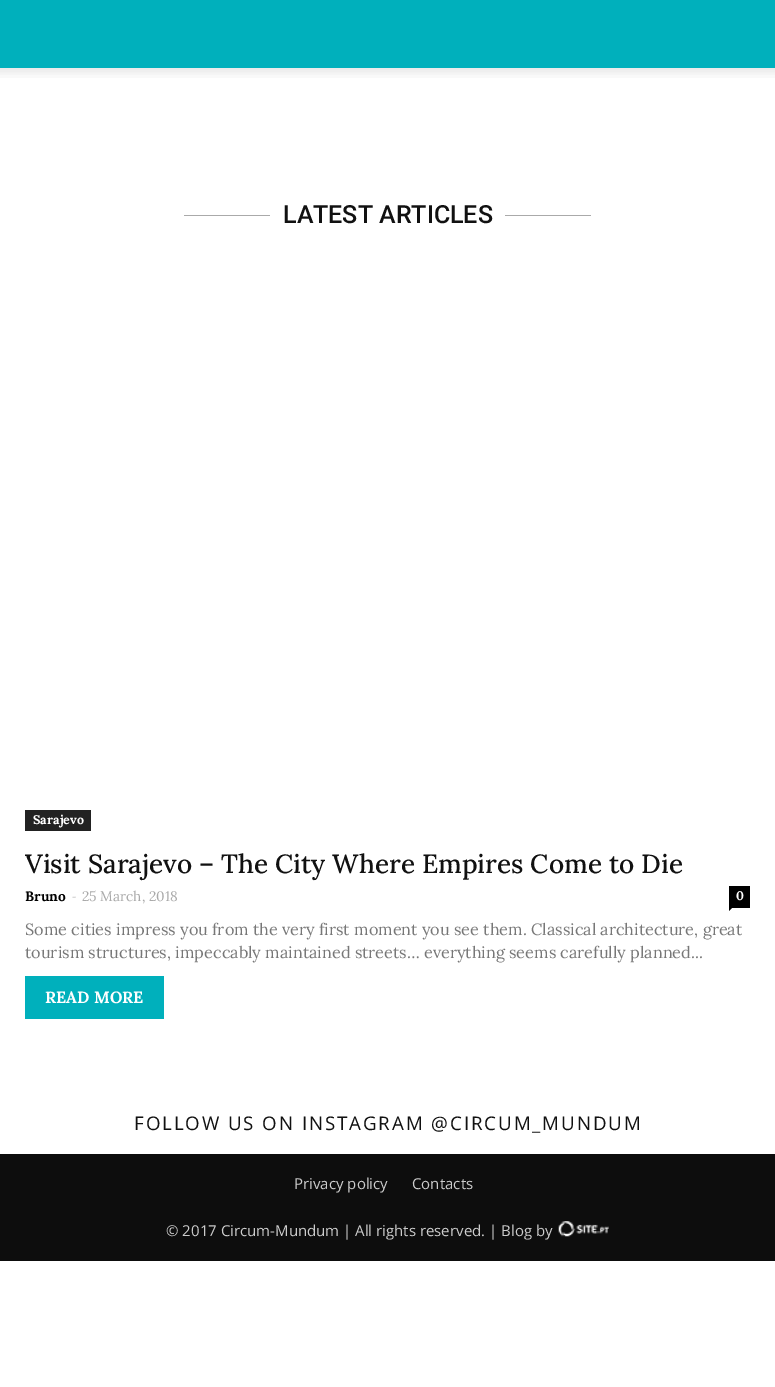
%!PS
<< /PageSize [775 1387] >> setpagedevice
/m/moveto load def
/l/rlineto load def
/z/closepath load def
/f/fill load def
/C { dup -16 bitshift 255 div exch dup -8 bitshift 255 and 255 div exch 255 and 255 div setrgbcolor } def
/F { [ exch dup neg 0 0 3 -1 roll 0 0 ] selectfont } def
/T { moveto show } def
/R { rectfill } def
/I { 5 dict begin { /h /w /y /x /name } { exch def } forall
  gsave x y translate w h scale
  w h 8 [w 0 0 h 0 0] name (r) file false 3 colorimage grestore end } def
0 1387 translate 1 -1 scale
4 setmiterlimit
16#FFFFFF C
0 0 775 1387 R
16#00B0BC C
0 0 775 68 R
(1.rgb) 0 68 775 10 I
16#AAAAAA C
184 215 86 1 R
/Roboto-Medium 25 F
16#111111 C
(LATEST ARTICLES) 283 223 T
16#AAAAAA C
505 215 86 1 R
16#222222 C
25 810 66 21 R
/Lora-Bold 12.5 F
16#FFFFFF C
(Sarajevo) 33 824 T
/Lora-Medium 26.25 F
16#111111 C
(Visit Sarajevo – The City Where Empires Come to Die) 25 873 T
/Lora-Bold 13.75 F
16#000000 C
(Bruno) 25 901 T
/OpenSans-Regular 13.75 F
16#CCCCCC C
(-) 72 901 T
/Lora-Regular 13.75 F
16#AAAAAA C
(25 March, 2018) 82 901 T
16#000000 C
729 886 21 22 R
/Lora-Bold 12.5 F
16#FFFFFF C
(0) 736 900 T
16#000000 C
729 907.5 m 3.5 0 l -3.5 3.5 l z f
/Lora-Regular 16.25 F
16#777777 C
(Some cities impress you from the very first moment you see them. Classical architecture, great) 25 935 T
(tourism structures, impeccably maintained streets… everything seems carefully planned...) 25 958 T
16#00B0BC C
25 976 139 43 R
/Lora-Bold 16.25 F
16#FFFFFF C
(READ MORE) 45 1003 T
/OpenSans-Regular 18.75 F
16#111111 C
134 1130 m 1.9 0 (FOLLOW US ON INSTAGRAM @CIRCUM_MUNDUM) ashow
16#0D0D0D C
0 1154 775 107 R
/OpenSans-Regular 15 F
16#CCCCCC C
(Privacy policy) 294 1189 T
(Contacts) 412 1189 T
(© 2017 Circum-Mundum | All rights reserved. | Blog by) 166 1236 T
(2.rgb) 558 1221 51 16 I
showpage
